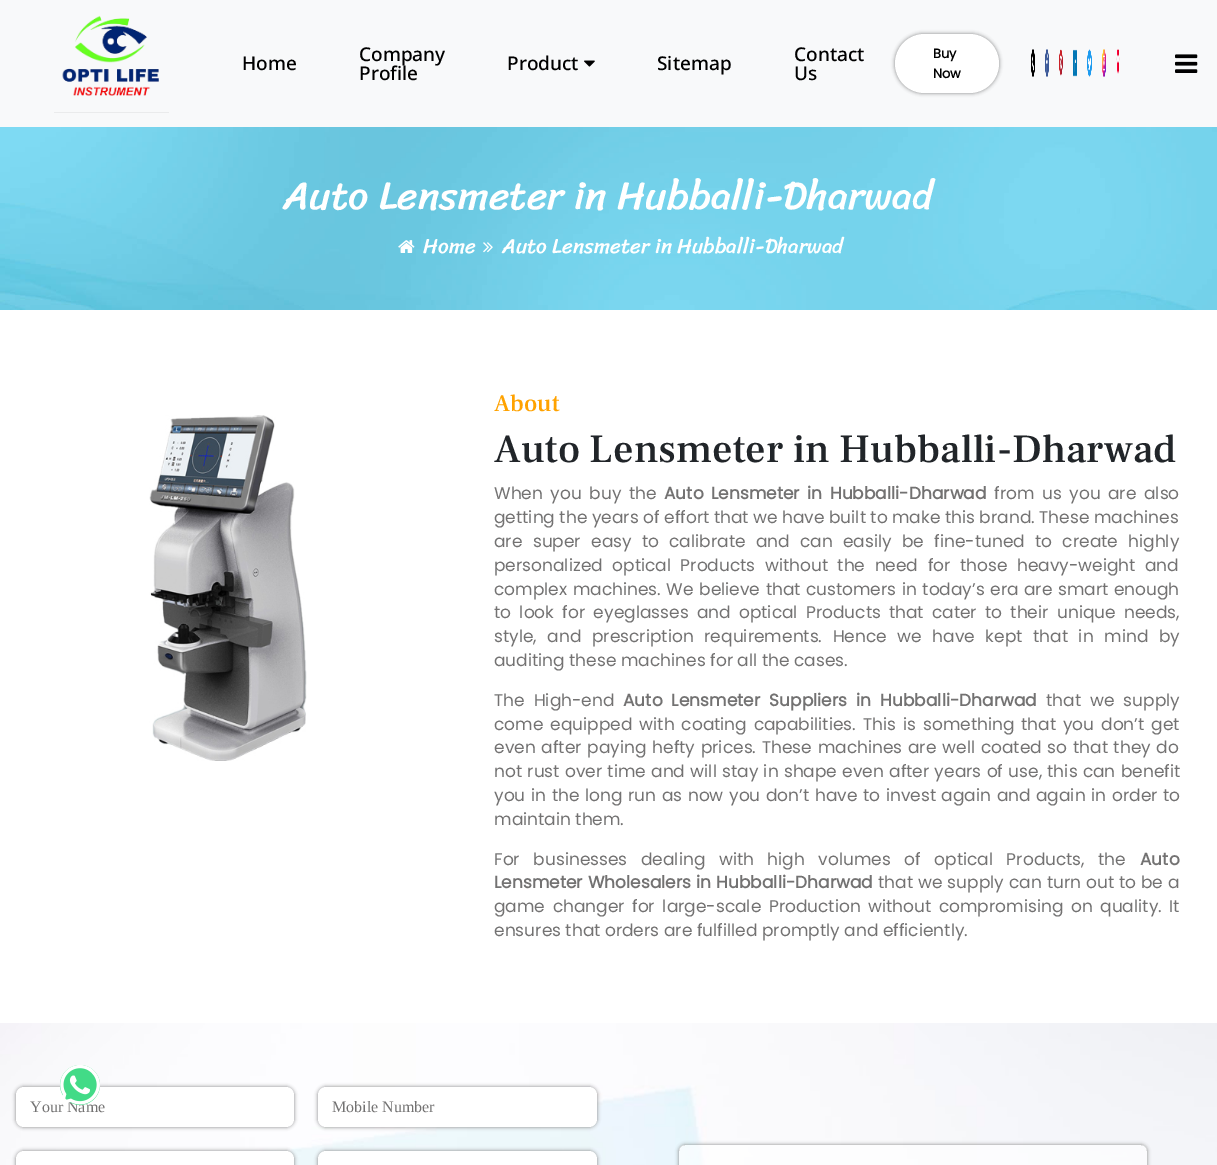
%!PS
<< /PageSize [1217 1165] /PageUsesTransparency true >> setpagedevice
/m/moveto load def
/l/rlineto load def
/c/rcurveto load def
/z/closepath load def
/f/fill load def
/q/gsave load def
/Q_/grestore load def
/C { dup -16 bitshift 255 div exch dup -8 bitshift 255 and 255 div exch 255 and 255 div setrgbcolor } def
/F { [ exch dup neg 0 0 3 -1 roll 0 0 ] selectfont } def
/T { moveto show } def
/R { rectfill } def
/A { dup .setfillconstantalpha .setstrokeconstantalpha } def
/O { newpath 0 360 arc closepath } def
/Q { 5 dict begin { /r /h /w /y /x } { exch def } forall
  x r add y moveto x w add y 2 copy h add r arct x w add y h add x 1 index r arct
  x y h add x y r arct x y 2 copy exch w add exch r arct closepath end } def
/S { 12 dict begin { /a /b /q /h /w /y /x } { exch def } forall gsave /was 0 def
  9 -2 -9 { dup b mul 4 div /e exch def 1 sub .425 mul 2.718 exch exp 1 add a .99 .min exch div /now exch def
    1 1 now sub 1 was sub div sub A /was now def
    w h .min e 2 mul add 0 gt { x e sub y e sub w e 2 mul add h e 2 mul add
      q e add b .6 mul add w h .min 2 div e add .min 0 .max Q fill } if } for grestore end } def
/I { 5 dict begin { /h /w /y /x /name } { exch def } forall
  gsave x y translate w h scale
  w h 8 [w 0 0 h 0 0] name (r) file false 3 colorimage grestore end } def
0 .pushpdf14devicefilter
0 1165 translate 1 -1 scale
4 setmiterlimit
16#FFFFFF C
0 0 1217 1165 R
16#F8F9FA C
0 0 1217 127 R
(1.rgb) 54 15 115 98 I
/NotoSans-Medium 19 F
16#000000 C
(Home) 242 70 T
(Company) 359 61 T
(Profile) 359 80 T
(Product) 507 70 T
(2.rgb) 584 60 11 7 I
(Sitemap) 657 70 T
(Contact) 794 61 T
(Us) 794 80 T
16#808080 C
895 34 104 59 29.5 2 1 S
16#FFFFFF C
895 34 104 59 29.5 Q f
/Poppins-Bold 13 F
16#000000 C
(Buy) 933 58 T
(Now) 933 78 T
(3.rgb) 1031 49 4 28 I
(4.rgb) 1045 49 4 28 I
(5.rgb) 1059 49 4 27 I
(6.rgb) 1073 49 4 28 I
(7.rgb) 1087 49 5 28 I
(8.rgb) 1102 49 4 28 I
(9.rgb) 1116 49 4 25 I
(10.rgb) 1175 54 23 19 I
(11.rgb) 0 127 1217 183 I
/Sriracha-Regular 40 F
16#FFFFFF C
(Auto Lensmeter in Hubballi-Dharwad) 283 209 T
(12.rgb) 398 240 17 13 I
/Sriracha-Regular 21 F
(Home) 423 253 T
(13.rgb) 483 242 10 11 I
(Auto Lensmeter in Hubballi-Dharwad) 502 253 T
(14.rgb) 149 415 158 346 I
/FrankRuhlLibre-Medium 24 F
16#FFA200 C
(About) 494 411 T
/FrankRuhlLibre-Medium 40 F
16#212529 C
(Auto Lensmeter in Hubballi-Dharwad) 494 462 T
/Poppins-Regular 17 F
16#737272 C
494 499 m 3 0 32 (When you buy the) widthshow
/Poppins-Bold 17 F
664 499 m 3 0 32 (Auto Lensmeter in Hubballi-Dharwad) widthshow
/Poppins-Regular 17 F
994 499 m 3 0 32 (from us you are also) widthshow
(getting the years of effort that we have built to make this brand. These machines) 494 523 T
494 547 m 5.75 0 32 (are super easy to calibrate and can easily be fine-tuned to create highly) widthshow
494 571 m 5 0 32 (personalized optical Products without the need for those heavy-weight and) widthshow
494 595 m 1 0 32 (complex machines. We believe that customers in today’s era are smart enough) widthshow
494 618 m 3.75 0 32 (to look for eyeglasses and optical Products that cater to their unique needs,) widthshow
494 642 m 6.1 0 32 (style, and prescription requirements. Hence we have kept that in mind by) widthshow
(auditing these machines for all the cases.) 494 666 T
494 706 m 4.5 0 32 (The High-end) widthshow
/Poppins-Bold 17 F
623 706 m 4.5 0 32 (Auto Lensmeter Suppliers in Hubballi-Dharwad) widthshow
/Poppins-Regular 17 F
1046 706 m 4.5 0 32 (that we supply) widthshow
494 730 m 2.4 0 32 (come equipped with coating capabilities. This is something that you don’t get) widthshow
494 753 m 1.25 0 32 (even after paying hefty prices. These machines are well coated so that they do) widthshow
494 777 m .75 0 32 (not rust over time and will stay in shape even after years of use, this can benefit) widthshow
494 801 m 1.1 0 32 (you in the long run as now you don’t have to invest again and again in order to) widthshow
(maintain them.) 494 825 T
494 865 m 9 0 32 (For businesses dealing with high volumes of optical Products, the) widthshow
/Poppins-Bold 17 F
(Auto) 1140 865 T
494 888 m .5 0 32 (Lensmeter Wholesalers in Hubballi-Dharwad) widthshow
/Poppins-Regular 17 F
878 888 m .5 0 32 (that we supply can turn out to be a) widthshow
494 912 m 3 0 32 (game changer for large-scale Production without compromising on quality. It) widthshow
(ensures that orders are fulfilled promptly and efficiently.) 494 936 T
(16.rgb) 0 1023 1217 142 I
16#808080 C
16 1087 278 40 8 2 1 S
16#FFFFFF C
16 1087 278 40 8 Q f
/LiberationSerif-Regular 16 F
16#737272 C
(Your Name) 30 1112 T
16#42DB87 C
80 1085 20 O f
(15.rgb) 60 1065 40 40 I
16#808080 C
318 1087 279 40 8 2 1 S
16#FFFFFF C
318 1087 279 40 8 Q f
16#737272 C
(Mobile Number) 332 1112 T
16#808080 C
16 1151 278 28 8 2 1 S
16#FFFFFF C
16 1151 278 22 8 Q f
16#808080 C
318 1151 279 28 8 2 1 S
16#FFFFFF C
318 1151 279 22 8 Q f
q
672 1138 m 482 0 l 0 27 l -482 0 l z 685 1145 m 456 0 l 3.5 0 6 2.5 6 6 c 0 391 l 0 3.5 -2.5 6 -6 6 c -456 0 l -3.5 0 -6 -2.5 -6 -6 c 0 -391 l 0 -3.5 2.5 -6 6 -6 c z eoclip newpath
16#808080 C
679 1145 468 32 6 2 1 S
Q_
0.63 A
679 1145 468 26 6 Q f
.poppdf14devicefilter showpage
